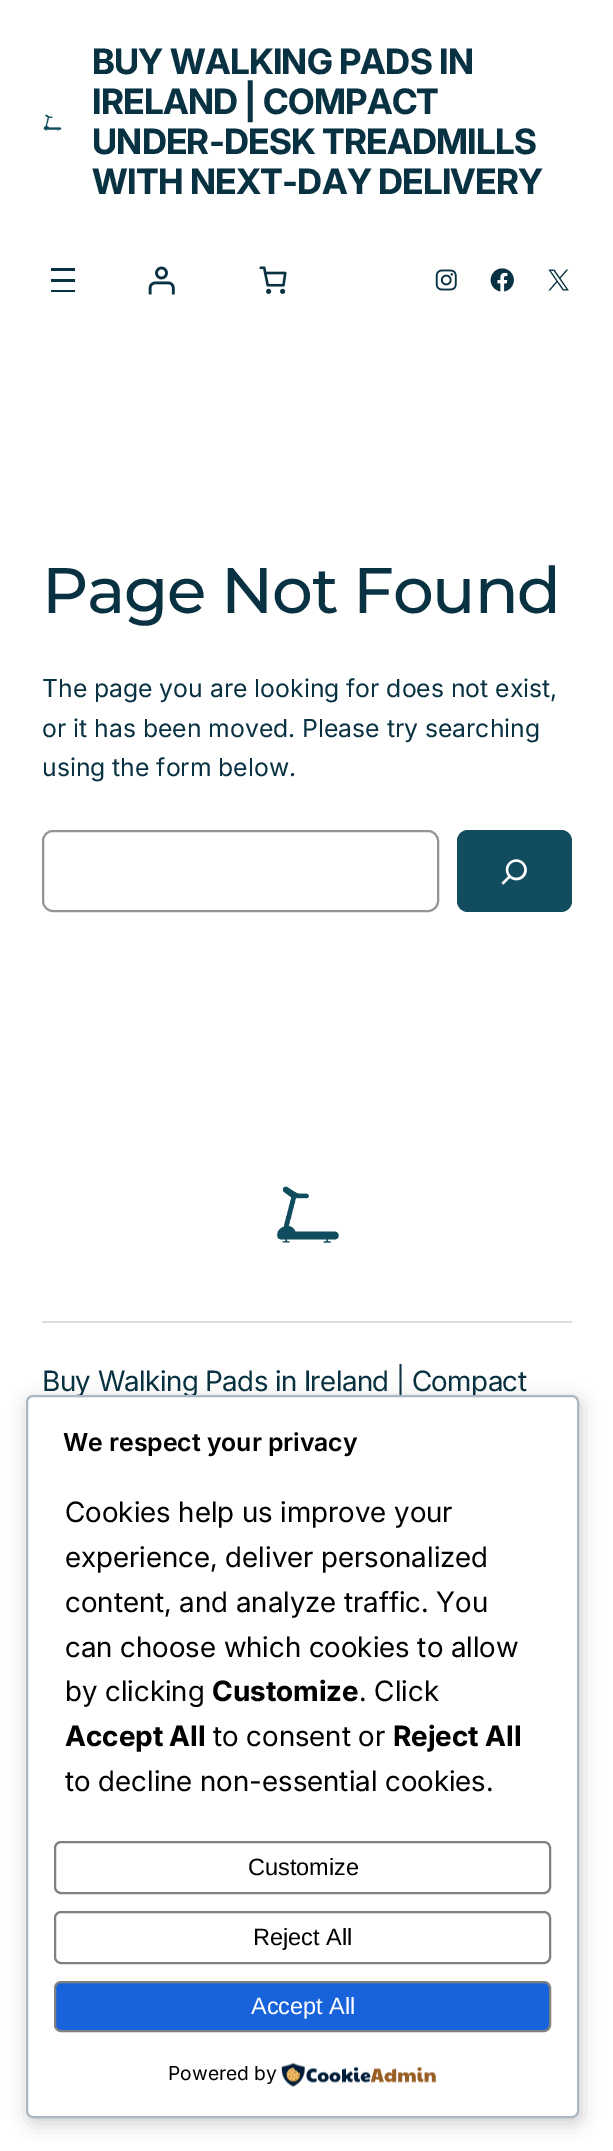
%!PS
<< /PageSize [613 2151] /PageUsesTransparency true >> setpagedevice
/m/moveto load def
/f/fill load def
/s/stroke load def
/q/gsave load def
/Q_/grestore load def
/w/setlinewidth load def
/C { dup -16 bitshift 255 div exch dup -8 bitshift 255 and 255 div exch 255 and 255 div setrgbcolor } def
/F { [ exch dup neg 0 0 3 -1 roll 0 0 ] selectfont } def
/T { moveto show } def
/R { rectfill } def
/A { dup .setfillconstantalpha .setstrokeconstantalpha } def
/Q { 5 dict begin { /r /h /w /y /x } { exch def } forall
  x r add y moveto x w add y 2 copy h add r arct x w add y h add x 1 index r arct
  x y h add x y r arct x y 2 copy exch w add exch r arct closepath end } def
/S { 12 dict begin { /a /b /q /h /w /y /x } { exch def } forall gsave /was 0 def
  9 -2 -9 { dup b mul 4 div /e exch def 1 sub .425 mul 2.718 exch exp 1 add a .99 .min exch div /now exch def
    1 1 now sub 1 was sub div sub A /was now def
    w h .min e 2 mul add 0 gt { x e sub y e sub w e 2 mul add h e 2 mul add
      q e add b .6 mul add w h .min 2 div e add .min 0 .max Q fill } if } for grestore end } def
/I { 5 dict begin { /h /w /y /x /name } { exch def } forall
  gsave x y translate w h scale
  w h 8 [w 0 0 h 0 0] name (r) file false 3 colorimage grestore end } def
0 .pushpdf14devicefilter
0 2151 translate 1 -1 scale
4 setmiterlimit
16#FFFFFF C
0 0 613 2151 R
(1.rgb) 43 114 19 17 I
/Inter-Bold 35 F
16#083141 C
92 74 m -.7 0 (BUY WALKING PADS IN) ashow
92 114 m -.7 0 (IRELAND | COMPACT) ashow
92 154 m -.7 0 (UNDER-DESK TREADMILLS) ashow
92 194 m -.7 0 (WITH NEXT-DAY DELIVERY) ashow
51 268 24 3 R
51 279 24 3 R
51 290 24 2 R
(2.rgb) 148 266 27 29 I
(3.rgb) 259 266 28 28 I
(4.rgb) 435 269 22 22 I
(5.rgb) 490 268 24 24 I
(6.rgb) 548 269 21 22 I
/Montserrat-Medium 64.25 F
42 613 m -1.25 0 (Page Not Found) ashow
/Inter-Regular 24.75 F
(The page you are looking for does not exist,) 42 697 T
(or it has been moved. Please try searching) 42 737 T
(using the form below.) 42 776 T
16#949494 C
2 w
43 831 395 80 10 Q s
16#114C5F C
457 830 115 82 11 Q f
(7.rgb) 501 859 26 26 I
(8.rgb) 277 1186 62 57 I
16#DEDEDE C
42 1321 530 2 R
/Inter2-Regular 28 F
16#083141 C
42 1391 m -.55 0 (Buy Walking Pads in Ireland | Compact) ashow
16#000000 C
28 1400 553 723 7 9 .2 S
16#FFFFFF C
27 1396 551 721 6 Q q f Q_
16#ABB8C3 C
s
/Inter-SemiBold 24.75 F
16#000000 C
(We respect your privacy) 63 1451 T
/Inter2-Regular 28 F
(Cookies help us improve your) 65 1522 T
(experience, deliver personalized) 65 1567 T
(content, and analyze traffic. You) 65 1612 T
(can choose which cookies to allow) 65 1657 T
(by clicking) 65 1701 T
/Inter2-Bold 28 F
(Customize) 212 1701 T
/Inter2-Regular 28 F
(. Click) 359 1701 T
/Inter2-Bold 28 F
(Accept All) 65 1746 T
/Inter2-Regular 28 F
(to consent or) 213 1746 T
/Inter2-Bold 28 F
(Reject All) 393 1746 T
/Inter2-Regular 28 F
(to decline non-essential cookies.) 65 1791 T
16#808080 C
55 1842 495 51 6 Q s
/LiberationSans-Regular 23.5 F
16#000000 C
(Customize) 248 1875 T
16#808080 C
55 1912 495 51 6 Q s
16#000000 C
(Reject All) 253 1945 T
16#1863DC C
55 1982 495 49 6 Q q f Q_
16#808080 C
s
16#FFFFFF C
(Accept All) 251 2014 T
/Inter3-Regular 19.25 F
16#000000 C
(Powered by) 168 2080 T
(9.rgb) 281 2062 155 25 I
.poppdf14devicefilter showpage
